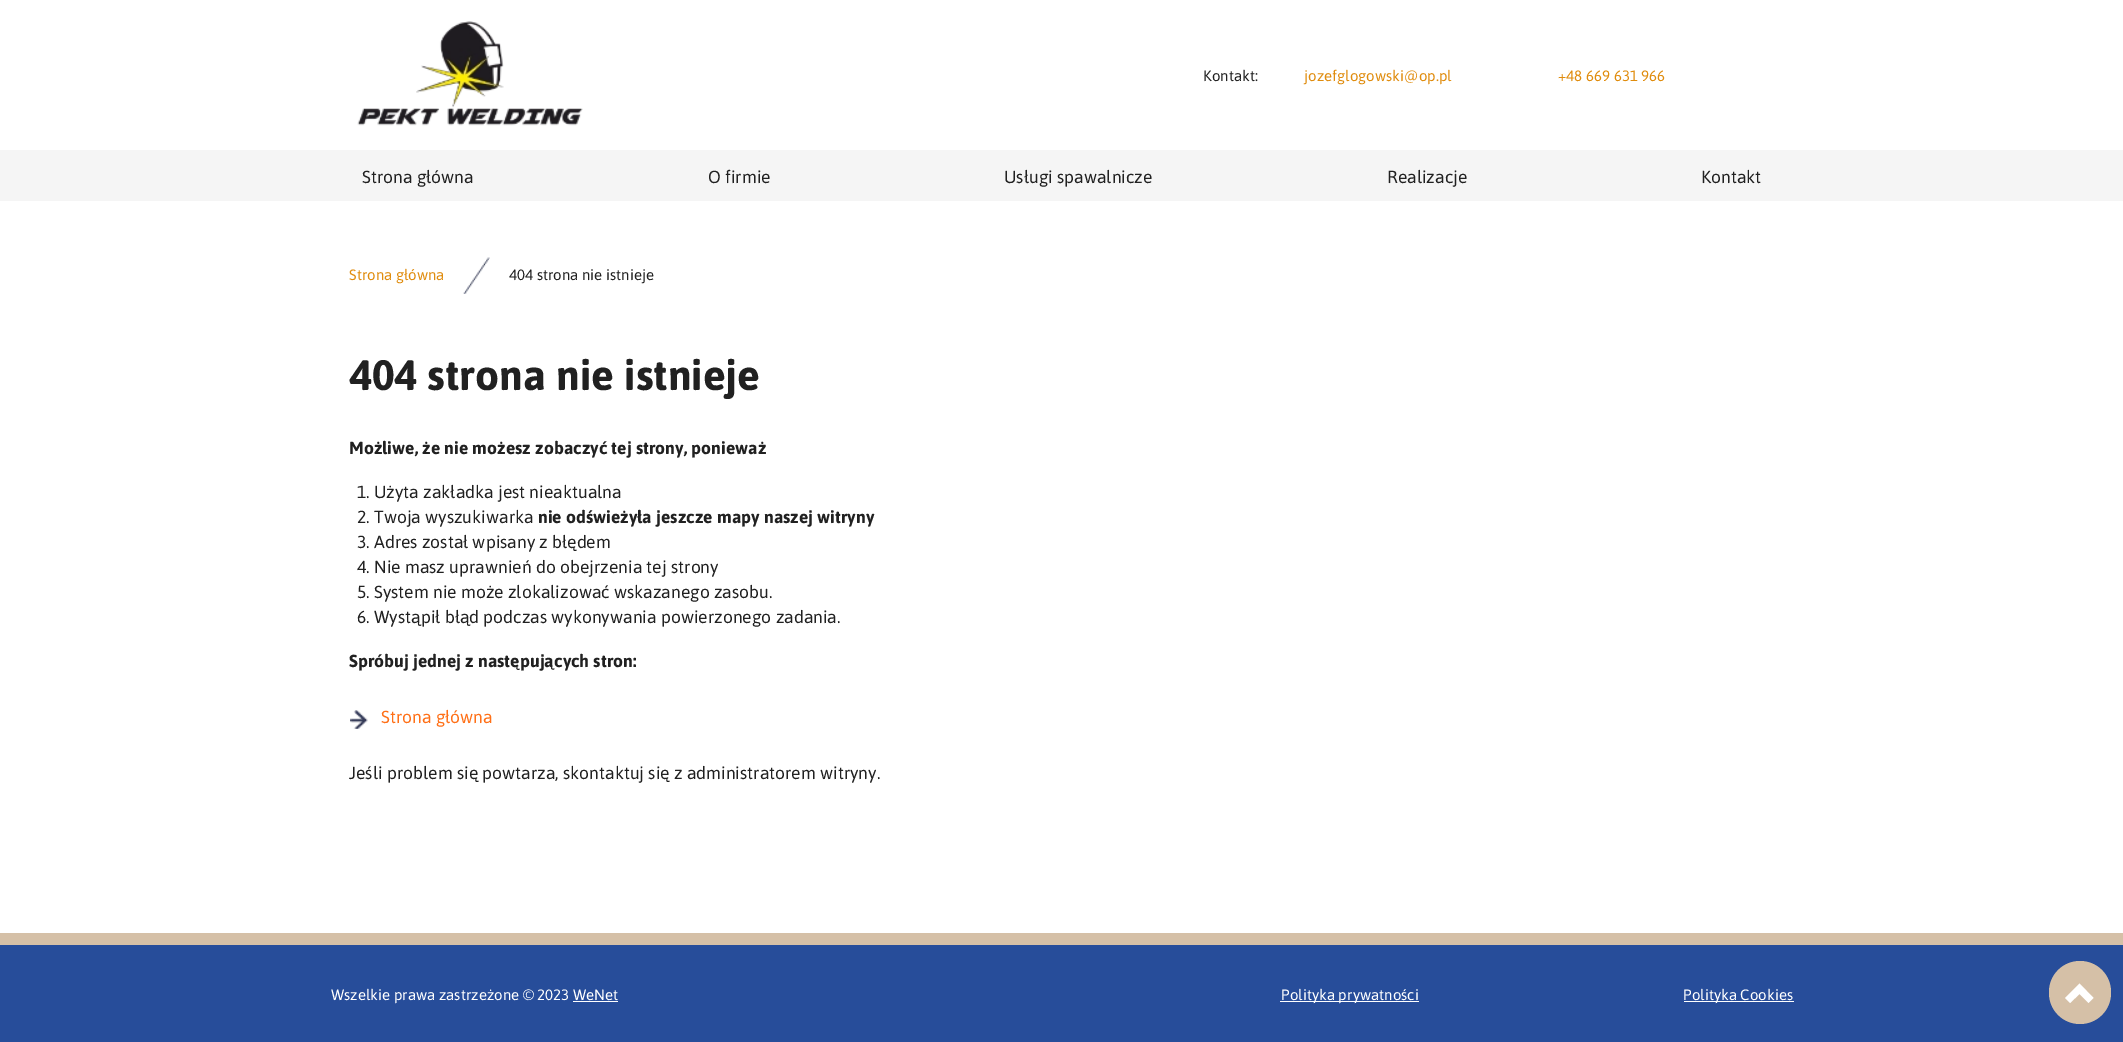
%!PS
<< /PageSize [2123 1042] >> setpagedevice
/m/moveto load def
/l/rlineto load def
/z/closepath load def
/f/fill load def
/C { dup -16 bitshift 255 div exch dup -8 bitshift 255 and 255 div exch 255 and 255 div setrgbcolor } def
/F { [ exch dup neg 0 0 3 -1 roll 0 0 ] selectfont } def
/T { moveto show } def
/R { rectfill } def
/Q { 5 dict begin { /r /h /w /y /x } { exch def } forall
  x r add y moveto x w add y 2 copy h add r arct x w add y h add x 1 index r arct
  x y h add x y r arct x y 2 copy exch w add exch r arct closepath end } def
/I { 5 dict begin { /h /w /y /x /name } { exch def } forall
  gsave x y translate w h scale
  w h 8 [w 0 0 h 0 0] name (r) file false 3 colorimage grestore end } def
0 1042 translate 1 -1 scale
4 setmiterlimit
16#FFFFFF C
0 0 2123 1042 R
(1.rgb) 357 21 226 105 I
/Asap-Regular 15 F
16#212121 C
(Kontakt:) 1203 81 T
16#E08C0D C
(jozefglogowski@op.pl) 1304 81 T
(+48 669 631 966) 1558 81 T
16#F5F5F5 C
0 150 2123 51 R
/Asap-Regular 17.5 F
16#212121 C
(Strona główna) 362 183 T
(O firmie) 708 183 T
(Usługi spawalnicze) 1004 183 T
(Realizacje) 1387 183 T
(Kontakt) 1701 183 T
/Asap-Regular 15 F
16#E08C0D C
(Strona główna) 349 280 T
(2.rgb) 463 257 27 37 I
16#212121 C
(404 strona nie istnieje) 509 280 T
/Asap-Bold 42.5 F
(404 strona nie istnieje) 349 390 T
/Asap-Bold 17.5 F
(Możliwe, że nie możesz zobaczyć tej strony, ponieważ) 349 454 T
/Asap-Regular 17.5 F
(1. Użyta zakładka jest nieaktualna) 357 498 T
(2. Twoja wyszukiwarka) 357 523 T
/Asap-Bold 17.5 F
(nie odświeżyła jeszcze mapy naszej witryny) 538 523 T
/Asap-Regular 17.5 F
(3. Adres został wpisany z błędem) 357 548 T
(4. Nie masz uprawnień do obejrzenia tej strony) 357 573 T
(5. System nie może zlokalizować wskazanego zasobu.) 357 598 T
(6. Wystąpił błąd podczas wykonywania powierzonego zadania.) 357 623 T
/Asap-Bold 17.5 F
(Spróbuj jednej z następujących stron:) 349 667 T
(3.rgb) 350 710 18 19 I
/Asap-Regular 17.5 F
16#FF7017 C
(Strona główna) 381 723 T
16#212121 C
(Jeśli problem się powtarza, skontaktuj się z administratorem witryny.) 349 779 T
16#274D9A C
0 945 2123 97 R
16#D5C0A7 C
0 933 2123 12 R
/Asap-Regular 15 F
16#FFFFFF C
(Wszelkie prawa zastrzeżone © 2023 WeNet) 331 1000 T
573 1001 45 1 R
1280 1001 139 1 R
(Polityka prywatności) 1281 1000 T
1684 1001 110 1 R
(Polityka Cookies) 1683 1000 T
16#D5C0A7 C
2049 961 62 63 31 Q f
16#FFFFFF C
2093.5 998 m -5 5 l -9 -9 l -9.5 9 l -5 -5 l 14.5 -14.5 l z f
showpage
